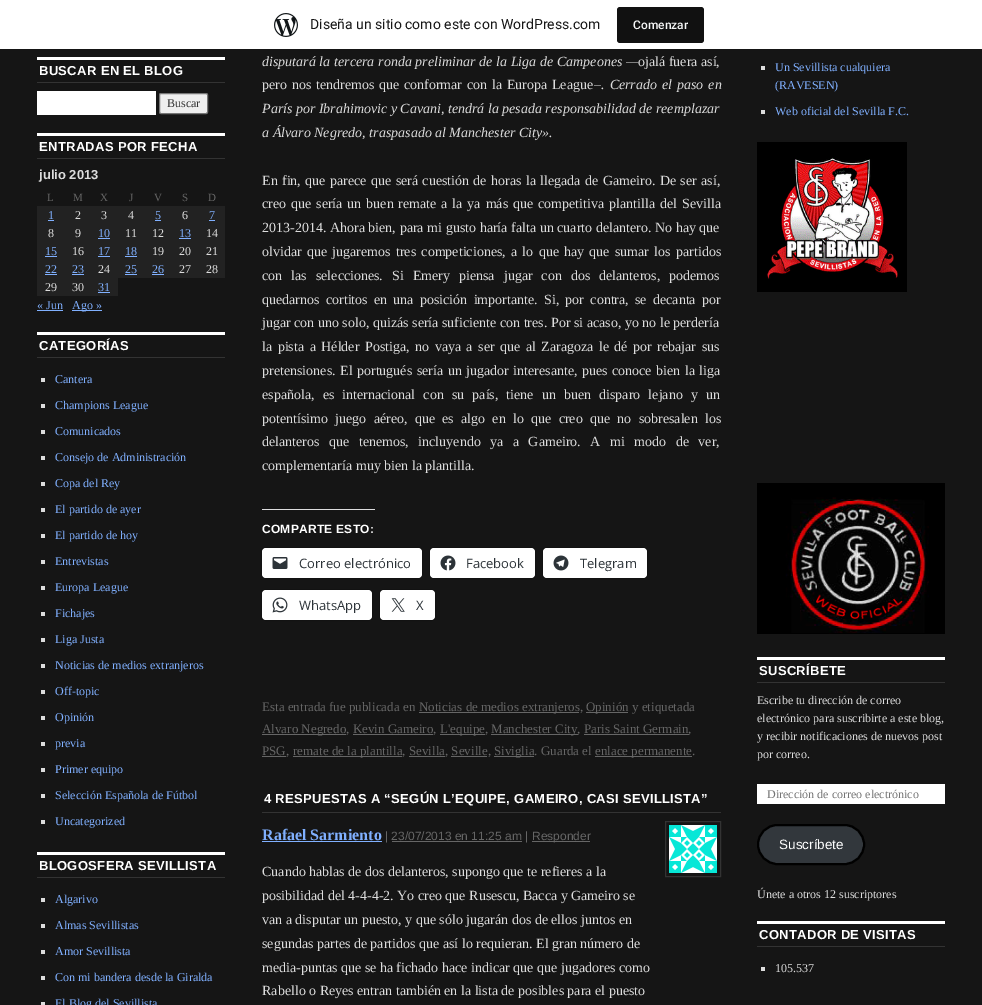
%!PS
<< /PageSize [982 1005] >> setpagedevice
/m/moveto load def
/f/fill load def
/s/stroke load def
/q/gsave load def
/Q_/grestore load def
/w/setlinewidth load def
/C { dup -16 bitshift 255 div exch dup -8 bitshift 255 and 255 div exch 255 and 255 div setrgbcolor } def
/F { [ exch dup neg 0 0 3 -1 roll 0 0 ] selectfont } def
/T { moveto show } def
/R { rectfill } def
/Q { 5 dict begin { /r /h /w /y /x } { exch def } forall
  x r add y moveto x w add y 2 copy h add r arct x w add y h add x 1 index r arct
  x y h add x y r arct x y 2 copy exch w add exch r arct closepath end } def
/I { 5 dict begin { /h /w /y /x /name } { exch def } forall
  gsave x y translate w h scale
  w h 8 [w 0 0 h 0 0] name (r) file false 3 colorimage grestore end } def
0 1005 translate 1 -1 scale
4 setmiterlimit
16#151515 C
0 0 982 1005 R
16#FFFFFF C
0 0 982 49 R
(1.rgb) 274 13 24 24 I
/Roboto-Regular 14 F
16#171717 C
(Diseña un sitio como este con WordPress.com) 310 29 T
16#111111 C
617 7 87 36 3 Q f
/Roboto-Medium 12 F
16#F6F7F7 C
(Comenzar) 633 29 T
16#FFFFFF C
37 57 188 3 R
16#333333 C
37 82 188 1 R
/LiberationSans-Bold 13 F
16#FFFFFF C
39 75 m .33 0 (BUSCAR EN EL BLOG) ashow
37 91 119 24 R
16#EFEFEF C
159.5 93.5 48 20 1.5 Q q f Q_
16#767676 C
s
/LiberationSerif-Regular 12 F
16#333333 C
(Buscar) 167 107 T
16#FFFFFF C
37 133 188 3 R
16#333333 C
37 158 188 1 R
/LiberationSans-Bold 13 F
16#FFFFFF C
39 151 m .33 0 (ENTRADAS POR FECHA) ashow
16#DDDDDD C
(julio 2013) 39 179 T
/LiberationSerif-Regular 11 F
16#666666 C
(L) 47 201 T
(M) 73 201 T
(X) 100 201 T
(J) 129 201 T
(V) 154 201 T
(S) 182 201 T
(D) 208 201 T
16#222222 C
37 206 188 18 R
/LiberationSerif-Regular 12 F
16#80B0FF C
(1) 48 219 T
48 220 6 1 R
16#DDDDDD C
(2) 75 219 T
(3) 101 219 T
(4) 128 219 T
16#80B0FF C
(5) 155 219 T
155 220 6 1 R
16#DDDDDD C
(6) 182 219 T
16#80B0FF C
(7) 209 219 T
209 220 6 1 R
16#222222 C
37 224 188 18 R
16#DDDDDD C
(8) 48 237 T
(9) 75 237 T
16#80B0FF C
(10) 98 237 T
98 238 12 1 R
16#DDDDDD C
(11) 125 237 T
(12) 152 237 T
16#80B0FF C
(13) 179 237 T
179 238 12 1 R
16#DDDDDD C
(14) 206 237 T
16#222222 C
37 242 188 18 R
16#80B0FF C
(15) 45 255 T
45 256 12 1 R
16#DDDDDD C
(16) 72 255 T
16#80B0FF C
(17) 98 255 T
98 256 12 1 R
(18) 125 255 T
125 256 12 1 R
16#DDDDDD C
(19) 152 255 T
(20) 179 255 T
(21) 206 255 T
16#222222 C
37 260 188 18 R
16#80B0FF C
(22) 45 273 T
45 274 12 1 R
(23) 72 273 T
72 274 12 1 R
16#DDDDDD C
(24) 98 273 T
16#80B0FF C
(25) 125 273 T
125 274 12 1 R
(26) 152 273 T
152 274 12 1 R
16#DDDDDD C
(27) 179 273 T
(28) 206 273 T
16#222222 C
37 278 81 18 R
16#DDDDDD C
(29) 45 291 T
(30) 72 291 T
16#80B0FF C
(31) 98 291 T
98 292 12 1 R
(« Jun) 37 309 T
37 310 26 1 R
72 310 30 1 R
(Ago ») 72 309 T
16#FFFFFF C
37 332 188 3 R
16#333333 C
37 357 188 1 R
/LiberationSans-Bold 13 F
16#FFFFFF C
39 350 m .33 0 (CATEGORÍAS) ashow
16#DDDDDD C
41 378 4 4 R
/LiberationSerif-Regular 12 F
16#80B0FF C
(Cantera) 55 383 T
16#DDDDDD C
41 404 4 4 R
16#80B0FF C
(Champions League) 55 409 T
16#DDDDDD C
41 430 4 4 R
16#80B0FF C
(Comunicados) 55 435 T
16#DDDDDD C
41 456 4 4 R
16#80B0FF C
(Consejo de Administración) 55 461 T
16#DDDDDD C
41 482 4 4 R
16#80B0FF C
(Copa del Rey) 55 487 T
16#DDDDDD C
41 508 4 4 R
16#80B0FF C
(El partido de ayer) 55 513 T
16#DDDDDD C
41 534 4 4 R
16#80B0FF C
(El partido de hoy) 55 539 T
16#DDDDDD C
41 560 4 4 R
16#80B0FF C
(Entrevistas) 55 565 T
16#DDDDDD C
41 586 4 4 R
16#80B0FF C
(Europa League) 55 591 T
16#DDDDDD C
41 612 4 4 R
16#80B0FF C
(Fichajes) 55 617 T
16#DDDDDD C
41 638 4 4 R
16#80B0FF C
(Liga Justa) 55 643 T
16#DDDDDD C
41 664 4 4 R
16#80B0FF C
(Noticias de medios extranjeros) 55 669 T
16#DDDDDD C
41 690 4 4 R
16#80B0FF C
(Off-topic) 55 695 T
16#DDDDDD C
41 716 4 4 R
16#80B0FF C
(Opinión) 55 721 T
16#DDDDDD C
41 742 4 4 R
16#80B0FF C
(previa) 55 747 T
16#DDDDDD C
41 768 4 4 R
16#80B0FF C
(Primer equipo) 55 773 T
16#DDDDDD C
41 794 4 4 R
16#80B0FF C
(Selección Española de Fútbol) 55 799 T
16#DDDDDD C
41 820 4 4 R
16#80B0FF C
(Uncategorized) 55 825 T
16#FFFFFF C
37 852 188 3 R
16#333333 C
37 877 188 1 R
/LiberationSans-Bold 13 F
16#FFFFFF C
39 870 m .33 0 (BLOGOSFERA SEVILLISTA) ashow
16#DDDDDD C
41 898 4 4 R
/LiberationSerif-Regular 12 F
16#80B0FF C
(Algarivo) 55 903 T
16#DDDDDD C
41 924 4 4 R
16#80B0FF C
(Almas Sevillistas) 55 929 T
16#DDDDDD C
41 950 4 4 R
16#80B0FF C
(Amor Sevillista) 55 955 T
16#DDDDDD C
41 976 4 4 R
16#80B0FF C
(Con mi bandera desde la Giralda) 55 981 T
16#DDDDDD C
41 1002 4 3 R
16#80B0FF C
(El Blog del Sevillista) 55 1007 T
/LiberationSerif-Italic 14 F
16#DDDDDD C
262 66 m .25 0 32 (disputará la tercera ronda preliminar de la Liga de Campeones —) widthshow
/LiberationSerif-Regular 14 F
(ojalá fuera así,) 638 66 T
262 89 m 1.25 0 32 (pero nos tendremos que conformar con la Europa League) widthshow
/LiberationSerif-Italic 14 F
594 89 m 1.5 0 32 (–. Cerrado el paso en) widthshow
(París por Ibrahimovic y Cavani, tendrá la pesada responsabilidad de reemplazar) 262 113 T
(a Álvaro Negredo, traspasado al Manchester City».) 262 137 T
/LiberationSerif-Regular 14 F
262 185 m .9 0 32 (En fin, que parece que será cuestión de horas la llegada de Gameiro. De ser así,) widthshow
262 208 m 1.4 0 32 (creo que sería un buen remate a la ya más que competitiva plantilla del Sevilla) widthshow
262 232 m .1 0 32 (2013-2014. Ahora bien, para mi gusto haría falta un cuarto delantero. No hay que) widthshow
262 256 m 1.75 0 32 (olvidar que jugaremos tres competiciones, a lo que hay que sumar los partidos) widthshow
262 280 m 5.5 0 32 (con las selecciones. Si Emery piensa jugar con dos delanteros, podemos) widthshow
262 304 m 2.75 0 32 (quedarnos cortitos en una posición importante. Si, por contra, se decanta por) widthshow
(jugar con uno solo, quizás sería suficiente con tres. Por si acaso, yo no le perdería) 262 327 T
262 351 m 2 0 32 (la pista a Hélder Postiga, no vaya a ser que al Zaragoza le dé por rebajar sus) widthshow
262 375 m 1 0 32 (pretensiones. El portugués sería un jugador interesante, pues conoce bien la liga) widthshow
262 399 m 4.6 0 32 (española, es internacional con su país, tiene un buen disparo lejano y un) widthshow
262 423 m 3.75 0 32 (potentísimo juego aéreo, que es algo en lo que creo que no sobresalen los) widthshow
262 446 m 6 0 32 (delanteros que tenemos, incluyendo ya a Gameiro. A mi modo de ver,) widthshow
(complementaría muy bien la plantilla.) 262 470 T
16#DCDCDE C
262 509 113 1 R
/LiberationSans-Bold 12 F
16#FFFFFF C
262 533 m .25 0 (COMPARTE ESTO:) ashow
16#121212 C
261.5 547.5 161 31 4.5 Q s
16#FFFFFF C
262 548 160 30 4 Q f
(2.rgb) 272 557 16 12 I
/OpenSans-Regular 13 F
16#2C3338 C
(Correo electrónico) 299 568 T
16#121212 C
429.5 547.5 106 31 4.5 Q s
16#FFFFFF C
430 548 105 30 4 Q f
(3.rgb) 440 555 16 16 I
16#2C3338 C
(Facebook) 466 568 T
16#121212 C
542.5 547.5 105 31 4.5 Q s
16#FFFFFF C
543 548 104 30 4 Q f
(4.rgb) 553 555 16 16 I
16#2C3338 C
(Telegram) 580 568 T
16#121212 C
261.5 589.5 111 31 4.5 Q s
16#FFFFFF C
262 590 110 30 4 Q f
(5.rgb) 272 597 16 16 I
16#2C3338 C
(WhatsApp) 299 610 T
16#121212 C
379.5 589.5 56 31 4.5 Q s
16#FFFFFF C
380 590 55 30 4 Q f
(6.rgb) 391 598 14 14 I
16#2C3338 C
(X) 416 610 T
/LiberationSerif-Regular 13 F
16#666666 C
(Esta entrada fue publicada en) 262 711 T
419 712 160 1 R
(Noticias de medios extranjeros,) 419 711 T
586 712 42 1 R
(Opinión y etiquetada) 586 711 T
262 734 84 1 R
(Alvaro Negredo, Kevin Gameiro,) 262 733 T
440 734 45 1 R
(L'equipe,) 440 733 T
491 734 87 1 R
(Manchester City, Paris Saint Germain,) 491 733 T
353 734 80 1 R
584 734 105 1 R
262 756 24 1 R
(PSG,) 262 755 T
293 756 109 1 R
(remate de la plantilla, Sevilla, Seville,) 293 755 T
494 756 40 1 R
(Siviglia. Guarda el) 494 755 T
595 756 97 1 R
(enlace permanente.) 595 755 T
409 756 36 1 R
451 756 36 1 R
16#333333 C
262 812 459 1 R
/LiberationSans-Bold 13 F
16#FFFFFF C
264 803 m .33 0 (4 RESPUESTAS A “SEGÚN L’EQUIPE, GAMEIRO, CASI SEVILLISTA”) ashow
/LiberationSerif-Bold 16 F
16#80B0FF C
(Rafael Sarmiento) 262 840 T
262 841 120 1 R
/LiberationSans-Regular 12 F
16#666666 C
(| 23/07/2013 en 11:25 am |) 385 840 T
392 841 130 1 R
532 841 58 1 R
(Responder) 532 840 T
16#333333 C
665.5 821.5 55 55 rectstroke
(7.rgb) 669 825 48 48 I
/LiberationSerif-Regular 14 F
16#DDDDDD C
(Cuando hablas de dos delanteros, supongo que te refieres a la) 262 876 T
(posibilidad del 4-4-4-2. Yo creo que Rusescu, Bacca y Gameiro se) 262 900 T
(van a disputar un puesto, y que sólo jugarán dos de ellos juntos en) 262 924 T
(segundas partes de partidos que así lo requieran. El gran número de) 262 948 T
(media-puntas que se ha fichado hace indicar que que jugadores como) 262 972 T
(Rabello o Reyes entran también en la lista de posibles para el puesto) 262 995 T
761 66 4 4 R
/LiberationSerif-Regular 12 F
16#80B0FF C
(Un Sevillista cualquiera) 775 71 T
(\(RAVESEN\)) 775 89 T
16#DDDDDD C
761 110 4 4 R
16#80B0FF C
(Web oficial del Sevilla F.C.) 775 115 T
(8.rgb) 757 142 150 150 I
(9.rgb) 757 483 188 151 I
16#FFFFFF C
757 657 188 3 R
16#333333 C
757 682 188 1 R
/LiberationSans-Bold 13 F
16#FFFFFF C
759 675 m .33 0 (SUSCRÍBETE) ashow
/LiberationSerif-Regular 12 F
16#DDDDDD C
(Escribe tu dirección de correo) 757 704 T
(electrónico para suscribirte a este blog,) 757 722 T
(y recibir notificaciones de nuevos post) 757 740 T
(por correo.) 757 758 T
16#FFFFFF C
757 784 188 20 R
16#757575 C
(Dirección de correo electrónico) 767 798 T
16#32373C C
758 825 106 39 19.5 Q q f Q_
16#000000 C
2 w
s
/LiberationSans-Regular 13.5 F
16#FFFFFF C
(Suscríbete) 779 849 T
/LiberationSerif-Regular 12 F
16#DDDDDD C
(Únete a otros 12 suscriptores) 757 898 T
16#FFFFFF C
757 921 188 3 R
16#333333 C
757 946 188 1 R
/LiberationSans-Bold 13 F
16#FFFFFF C
759 939 m .33 0 (CONTADOR DE VISITAS) ashow
16#DDDDDD C
761 967 4 4 R
/LiberationSerif-Regular 12 F
(105.537) 775 972 T
showpage
